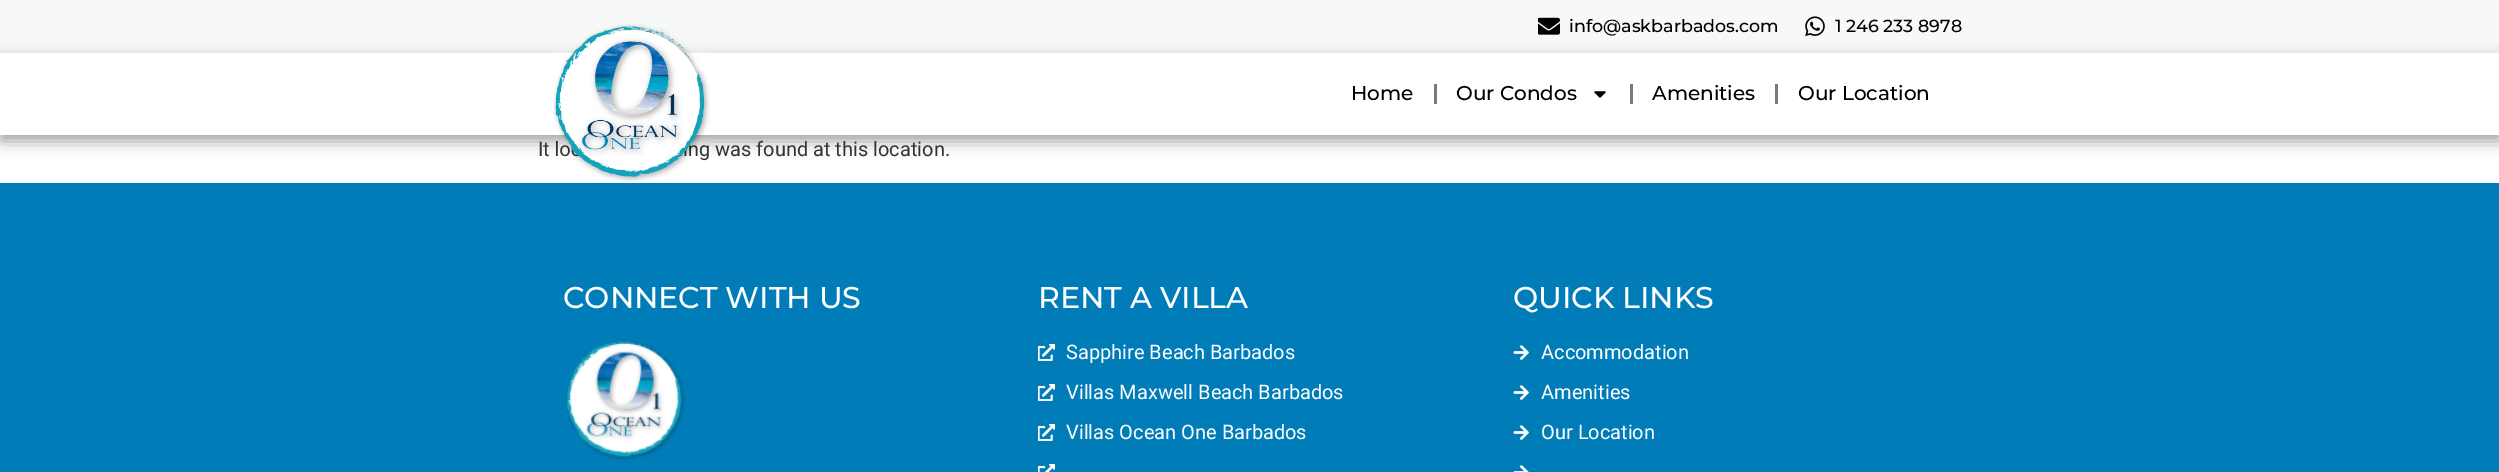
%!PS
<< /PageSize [2499 472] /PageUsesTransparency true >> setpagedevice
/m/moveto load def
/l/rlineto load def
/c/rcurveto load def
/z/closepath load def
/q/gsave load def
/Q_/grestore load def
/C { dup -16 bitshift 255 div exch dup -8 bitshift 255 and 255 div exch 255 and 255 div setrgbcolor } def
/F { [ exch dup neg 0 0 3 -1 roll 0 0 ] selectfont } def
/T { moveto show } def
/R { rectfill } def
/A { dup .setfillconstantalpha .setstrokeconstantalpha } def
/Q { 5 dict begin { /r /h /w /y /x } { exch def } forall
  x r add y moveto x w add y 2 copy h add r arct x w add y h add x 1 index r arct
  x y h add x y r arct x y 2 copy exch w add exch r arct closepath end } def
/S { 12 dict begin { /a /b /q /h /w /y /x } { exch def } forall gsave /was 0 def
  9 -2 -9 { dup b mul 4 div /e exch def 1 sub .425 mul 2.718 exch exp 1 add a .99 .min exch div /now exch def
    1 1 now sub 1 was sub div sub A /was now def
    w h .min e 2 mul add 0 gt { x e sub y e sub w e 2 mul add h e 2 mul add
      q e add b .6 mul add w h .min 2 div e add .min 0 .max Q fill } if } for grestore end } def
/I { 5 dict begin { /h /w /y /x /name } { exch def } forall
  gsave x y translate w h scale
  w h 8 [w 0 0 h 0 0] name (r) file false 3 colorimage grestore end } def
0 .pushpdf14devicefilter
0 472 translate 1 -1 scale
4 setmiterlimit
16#FFFFFF C
0 0 2499 472 R
16#F7F8F8 C
0 0 2499 53 R
(1.rgb) 1538 17 22 18 I
/Montserrat-Medium 17.5 F
16#000000 C
(info@askbarbados.com) 1569 32 T
(2.rgb) 1805 16 20 20 I
(1 246 233 8978) 1835 32 T
q
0 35 m 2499 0 l 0 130 l -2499 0 l z 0 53 m 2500 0 l 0 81 l 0 .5 -.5 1 -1 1 c -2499 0 l z eoclip newpath
0 59 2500 82 1 7.5 .37 S
Q_
/Roboto-Regular 20 F
16#333333 C
(It lo) 538 156 T
(ng was found at this location.) 688 156 T
(3.rgb) 553 24 157 158 I
/Montserrat-Medium 20 F
16#000000 C
(Home) 1351 100 T
16#7A7A7A C
1434 84 3 20 R
16#000000 C
(Our Condos) 1456 100 T
(4.rgb) 1594 91 12 7 I
16#7A7A7A C
1630 84 3 20 R
16#000000 C
(Amenities) 1652 100 T
16#7A7A7A C
1775 84 3 20 R
16#000000 C
(Our Location) 1798 100 T
16#007DB8 C
0 183 2499 289 R
/Montserrat-Medium 30 F
16#FFFFFF C
(CONNECT WITH US) 563 308 T
(5.rgb) 565 339 120 122 I
(RENT A VILLA) 1038 308 T
(6.rgb) 1038 344 17 17 I
/Roboto-Regular 20 F
(Sapphire Beach Barbados) 1066 359 T
(6.rgb) 1038 384 17 17 I
(Villas Maxwell Beach Barbados) 1066 399 T
(6.rgb) 1038 424 17 17 I
(Villas Ocean One Barbados) 1066 439 T
(7.rgb) 1038 464 17 8 I
/Montserrat-Medium 30 F
(QUICK LINKS) 1513 308 T
(8.rgb) 1513 345 16 15 I
/Roboto-Regular 20 F
(Accommodation) 1541 359 T
(8.rgb) 1513 385 16 15 I
(Amenities) 1541 399 T
(8.rgb) 1513 425 16 15 I
(Our Location) 1541 439 T
(9.rgb) 1513 465 16 7 I
.poppdf14devicefilter showpage
